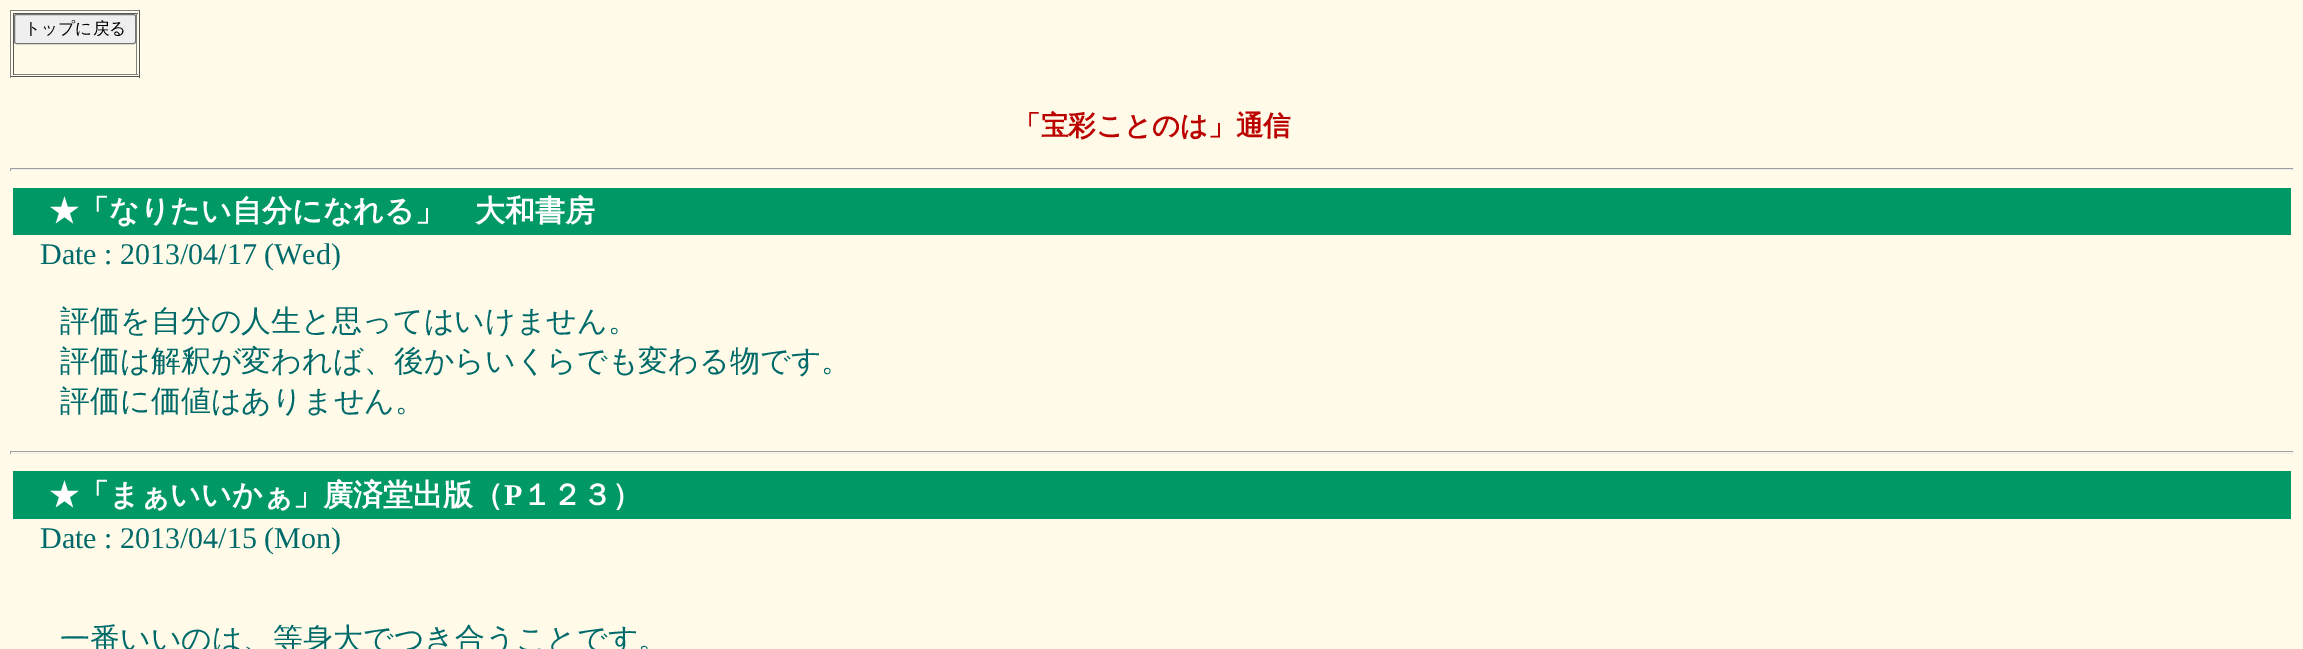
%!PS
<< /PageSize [2303 649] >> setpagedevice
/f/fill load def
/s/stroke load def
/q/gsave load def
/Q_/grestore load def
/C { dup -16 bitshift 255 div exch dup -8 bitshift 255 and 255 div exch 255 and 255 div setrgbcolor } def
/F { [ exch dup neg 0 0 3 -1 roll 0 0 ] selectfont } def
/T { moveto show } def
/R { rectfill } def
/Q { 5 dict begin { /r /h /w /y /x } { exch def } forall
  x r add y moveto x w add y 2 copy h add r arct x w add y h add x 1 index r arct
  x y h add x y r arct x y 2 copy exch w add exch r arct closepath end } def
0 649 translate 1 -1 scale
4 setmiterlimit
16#FFFBE8 C
0 0 2303 649 R
16#808080 C
10 10 130 1 R
16#555555 C
139 10 1 68 R
10 76 130 1 R
16#808080 C
10 10 1 68 R
16#555555 C
13 13 125 1 R
16#808080 C
136 13 1 62 R
13 74 125 1 R
16#555555 C
13 13 1 62 R
16#EFEFEF C
14.5 14.5 121 29 2 Q q f Q_
16#767676 C
s
/WenQuanYiZenHei-Medium 16.75 F
16#000000 C
(トップに戻る) 24 34 T
/WenQuanYiZenHei-Bold 27.5 F
16#BB0000 C
(「宝彩ことのは」通信) 1013 135 T
16#9F9F9F C
10 168 2284 1 R
16#EEEEEE C
2293 168 1 3 R
10 169 2284 1 R
16#9F9F9F C
10 168 1 3 R
16#009966 C
13 188 2278 47 R
/WenQuanYiZenHei-Bold 30 F
16#FFFFFF C
(★「なりたい自分になれる」　大和書房) 49 221 T
/LiberationSerif-Regular 30 F
16#006A6A C
(Date : 2013/04/17 \(Wed\)) 40 264 T
/WenQuanYiZenHei-Medium 30 F
(評価を自分の人生と思ってはいけません。) 60 331 T
(評価は解釈が変われば、後からいくらでも変わる物です。) 60 371 T
(評価に価値はありません。) 60 411 T
16#9F9F9F C
10 451 2284 1 R
16#EEEEEE C
2293 451 1 3 R
10 453 2284 1 R
16#9F9F9F C
10 451 1 3 R
16#009966 C
13 471 2278 48 R
/WenQuanYiZenHei-Bold 30 F
16#FFFFFF C
(★「まぁいいかぁ」廣済堂出版（) 49 505 T
/LiberationSerif-Bold 30 F
(P) 504 505 T
/WenQuanYiZenHei-Bold 30 F
(１２３）) 522 505 T
/LiberationSerif-Regular 30 F
16#006A6A C
(Date : 2013/04/15 \(Mon\)) 40 548 T
/WenQuanYiZenHei-Medium 30 F
(一番いいのは、等身大でつき合うことです。) 60 649 T
showpage
